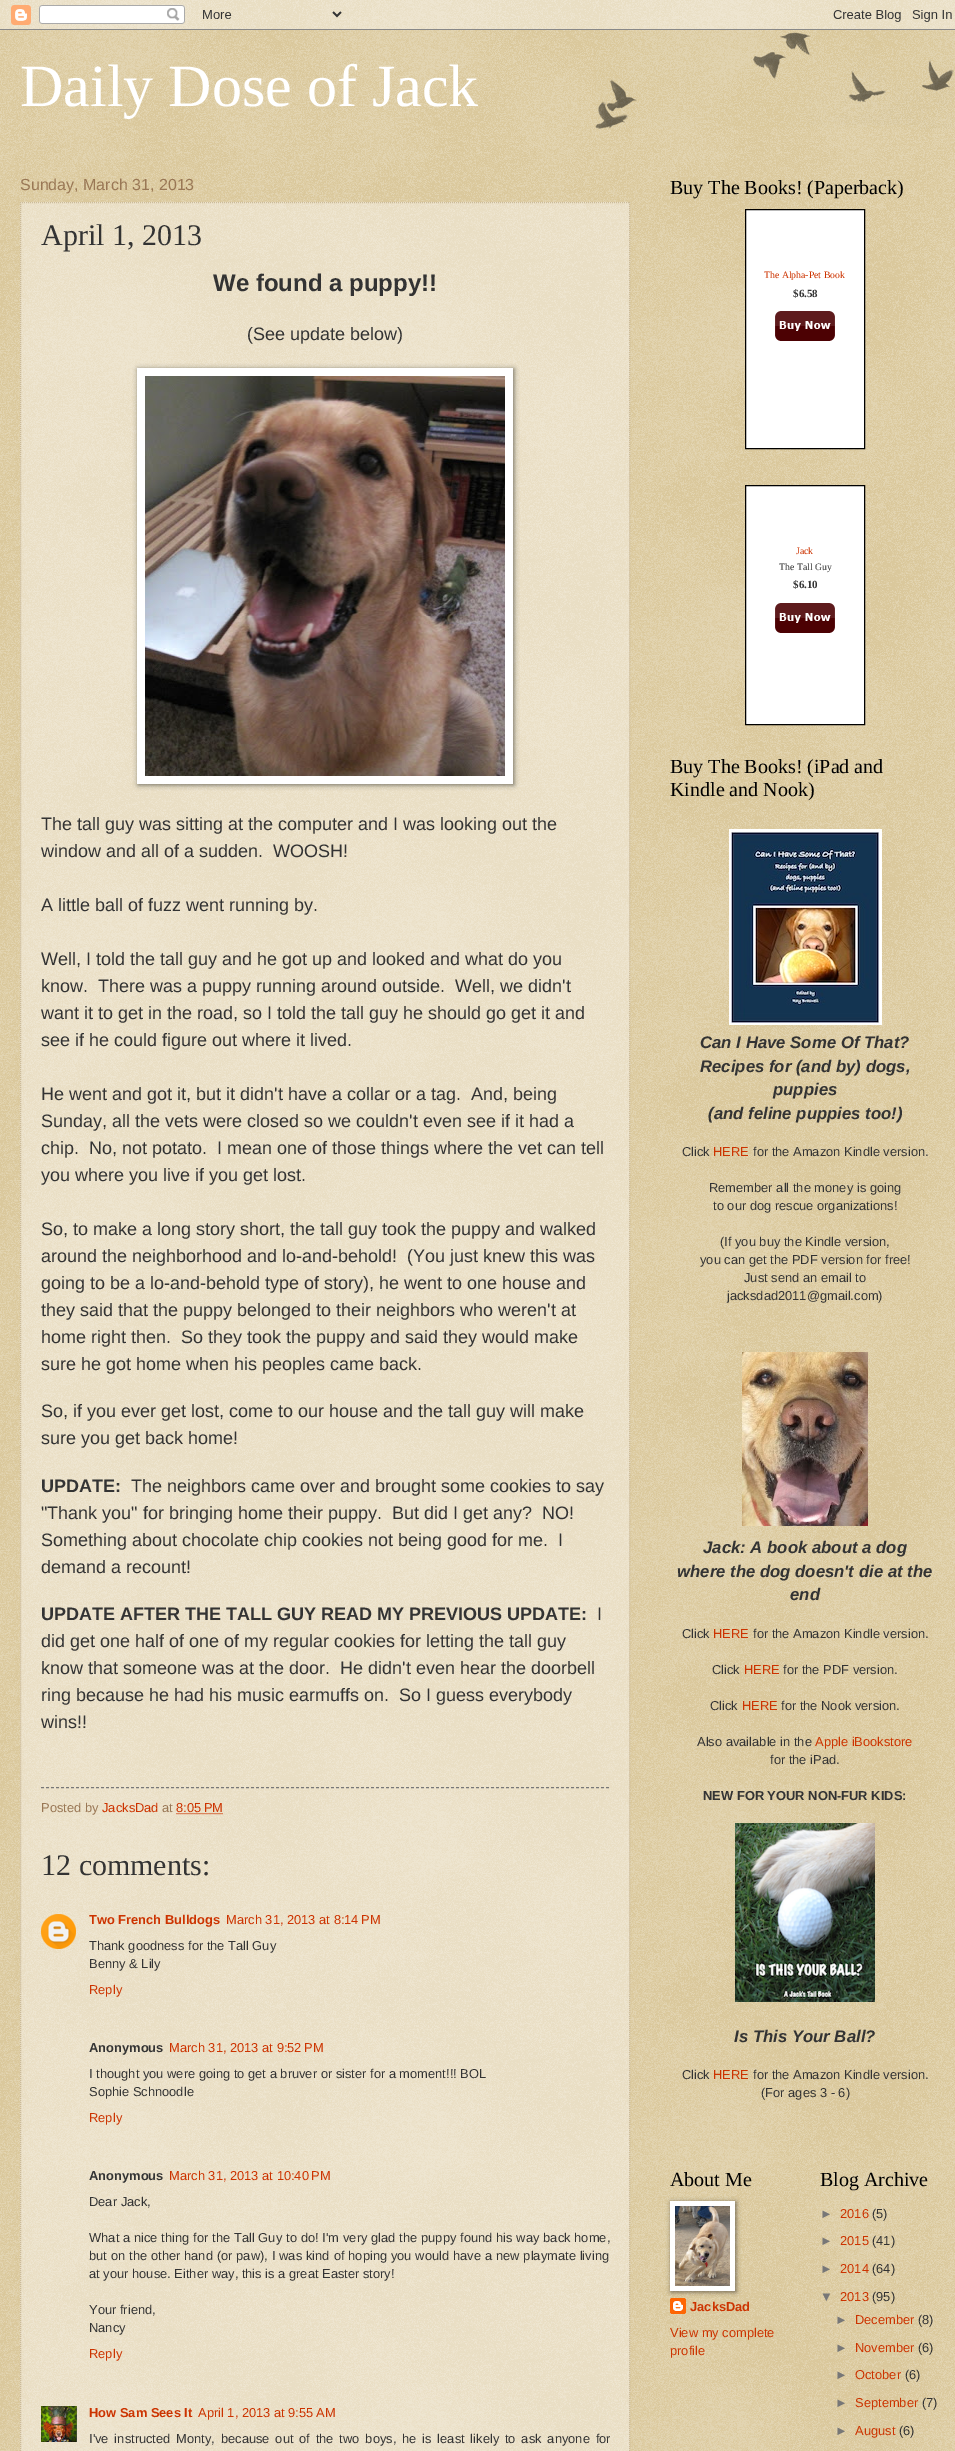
%!PS
<< /PageSize [955 2451] /PageUsesTransparency true >> setpagedevice
/m/moveto load def
/l/rlineto load def
/z/closepath load def
/f/fill load def
/s/stroke load def
/q/gsave load def
/Q_/grestore load def
/C { dup -16 bitshift 255 div exch dup -8 bitshift 255 and 255 div exch 255 and 255 div setrgbcolor } def
/F { [ exch dup neg 0 0 3 -1 roll 0 0 ] selectfont } def
/T { moveto show } def
/R { rectfill } def
/A { dup .setfillconstantalpha .setstrokeconstantalpha } def
/Q { 5 dict begin { /r /h /w /y /x } { exch def } forall
  x r add y moveto x w add y 2 copy h add r arct x w add y h add x 1 index r arct
  x y h add x y r arct x y 2 copy exch w add exch r arct closepath end } def
/S { 12 dict begin { /a /b /q /h /w /y /x } { exch def } forall gsave /was 0 def
  9 -2 -9 { dup b mul 4 div /e exch def 1 sub .425 mul 2.718 exch exp 1 add a .99 .min exch div /now exch def
    1 1 now sub 1 was sub div sub A /was now def
    w h .min e 2 mul add 0 gt { x e sub y e sub w e 2 mul add h e 2 mul add
      q e add b .6 mul add w h .min 2 div e add .min 0 .max Q fill } if } for grestore end } def
/I { 5 dict begin { /h /w /y /x /name } { exch def } forall
  gsave x y translate w h scale
  w h 8 [w 0 0 h 0 0] name (r) file false 3 colorimage grestore end } def
0 .pushpdf14devicefilter
0 2451 translate 1 -1 scale
4 setmiterlimit
16#C0A154 C
0 0 955 2451 R
(1.rgb) 0 0 955 2451 I
(2.rgb) 0 0 955 30 I
(3.rgb) 595 32 359 97 I
/LiberationSerif-Regular 60 F
16#FFFFFF C
(Daily Dose of Jack) 20 106 T
/LiberationSans-Regular 16 F
16#997755 C
(Sunday, March 31, 2013) 20 190 T
0.4 A
16#FFFFFF C
20 202 610 2249 R
1 A
16#CCBB99 C
[1 1] 0 setdash
20 202.5 m 610 0 l s
629.5 202 m 0 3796 l s
20.5 202 m 0 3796 l s
/LiberationSerif-Regular 30 F
16#333333 C
(April 1, 2013) 41 245 T
/LiberationSans-Bold 24 F
(We found a puppy!!) 213 291 T
/LiberationSans-Regular 18 F
(\(See update below\)) 247 340 T
16#000000 C
138 369 376 416 0 2.5 .5 S
16#FFFFFF C
137 368 376 416 R
(4.rgb) 145 376 360 400 I
16#333333 C
(The tall guy was sitting at the computer and I was looking out the) 41 830 T
(window and all of a sudden.  WOOSH!) 41 857 T
(A little ball of fuzz went running by.) 41 911 T
(Well, I told the tall guy and he got up and looked and what do you) 41 965 T
(know.  There was a puppy running around outside.  Well, we didn't) 41 992 T
(want it to get in the road, so I told the tall guy he should go get it and) 41 1019 T
(see if he could figure out where it lived.) 41 1046 T
(He went and got it, but it didn't have a collar or a tag.  And, being) 41 1100 T
(Sunday, all the vets were closed so we couldn't even see if it had a) 41 1127 T
(chip.  No, not potato.  I mean one of those things where the vet can tell) 41 1154 T
(you where you live if you get lost.) 41 1181 T
(So, to make a long story short, the tall guy took the puppy and walked) 41 1235 T
(around the neighborhood and lo-and-behold!  \(You just knew this was) 41 1262 T
(going to be a lo-and-behold type of story\), he went to one house and) 41 1289 T
(they said that the puppy belonged to their neighbors who weren't at) 41 1316 T
(home right then.  So they took the puppy and said they would make) 41 1343 T
(sure he got home when his peoples came back.) 41 1370 T
(So, if you ever get lost, come to our house and the tall guy will make) 41 1417 T
(sure you get back home!) 41 1444 T
/LiberationSans-Bold 18 F
(UPDATE:) 41 1492 T
/LiberationSans-Regular 18 F
(The neighbors came over and brought some cookies to say) 131 1492 T
("Thank you" for bringing home their puppy.  But did I get any?  NO!) 41 1519 T
(Something about chocolate chip cookies not being good for me.  I) 41 1546 T
(demand a recount!) 41 1573 T
/LiberationSans-Bold 18 F
(UPDATE AFTER THE TALL GUY READ MY PREVIOUS UPDATE:) 41 1620 T
/LiberationSans-Regular 18 F
(I) 597 1620 T
(did get one half of one of my regular cookies for letting the tall guy) 41 1647 T
(know that someone was at the door.  He didn't even hear the doorbell) 41 1674 T
(ring because he had his music earmuffs on.) 41 1701 T
(So I guess everybody) 399 1701 T
(wins!!) 41 1728 T
16#777777 C
[3 2] 0 setdash
41 1787.5 m 568 0 l s
/LiberationSans-Regular 12.9 F
16#997755 C
(Posted by) 41 1812 T
16#CC3300 C
(JacksDad) 102 1812 T
16#997755 C
(at) 162 1812 T
16#CC3300 C
(8:05 PM) 176 1812 T
[1 1] 0 setdash
176.5 1813.5 m 46.5 0 l s
/LiberationSerif-Regular 30 F
16#333333 C
(12 comments:) 41 1875 T
(5.rgb) 41 1914 35 35 I
/LiberationSans-Bold 12.9 F
16#CC3300 C
(Two French Bulldogs) 89 1924 T
/LiberationSans-Regular 12.9 F
(March 31, 2013 at 8:14 PM) 226 1924 T
16#333333 C
(Thank goodness for the Tall Guy) 89 1950 T
(Benny & Lily) 89 1968 T
16#CC3300 C
(Reply) 89 1994 T
/LiberationSans-Bold 12.9 F
16#333333 C
(Anonymous) 89 2052 T
/LiberationSans-Regular 12.9 F
16#CC3300 C
(March 31, 2013 at 9:52 PM) 169 2052 T
16#333333 C
(I thought you were going to get a bruver or sister for a moment!!! BOL) 89 2078 T
(Sophie Schnoodle) 89 2096 T
16#CC3300 C
(Reply) 89 2122 T
/LiberationSans-Bold 12.9 F
16#333333 C
(Anonymous) 89 2180 T
/LiberationSans-Regular 12.9 F
16#CC3300 C
(March 31, 2013 at 10:40 PM) 169 2180 T
16#333333 C
(Dear Jack,) 89 2206 T
89 2242 m .25 0 32 (What a nice thing for the Tall Guy to do! I'm very glad the puppy found his way back home,) widthshow
89 2260 m .3 0 32 (but on the other hand \(or paw\), I was kind of hoping you would have a new playmate living) widthshow
(at your house. Either way, this is a great Easter story!) 89 2278 T
(Your friend,) 89 2314 T
(Nancy) 89 2332 T
16#CC3300 C
(Reply) 89 2358 T
(6.rgb) 41 2406 36 36 I
/LiberationSans-Bold 12.9 F
(How Sam Sees It) 89 2417 T
/LiberationSans-Regular 12.9 F
(April 1, 2013 at 9:55 AM) 198 2417 T
16#333333 C
89 2443 m 2.25 0 32 (I've instructed Monty, because out of the two boys, he is least likely to ask anyone for) widthshow
/LiberationSerif-Regular 20 F
16#000000 C
(Buy The Books! \(Paperback\)) 670 194 T
16#FFFFFF C
745.5 209.5 m 119 0 l 0 239 l -119 0 l z q f Q_
16#000000 C
[] 0 setdash
s
/LiberationSerif-Regular 9.75 F
16#CC3300 C
(The Alpha-Pet Book) 764 278 T
/LiberationSerif-Bold 11 F
16#333333 C
($6.58) 793 297 T
(7.rgb) 775 311 60 30 I
16#FFFFFF C
745.5 485.5 m 119 0 l 0 239 l -119 0 l z q f Q_
16#000000 C
s
/LiberationSerif-Regular 9.75 F
16#CC3300 C
(Jack) 796 554 T
16#333333 C
(The Tall Guy) 779 570 T
/LiberationSerif-Bold 11 F
($6.10) 793 588 T
(7.rgb) 775 603 60 30 I
/LiberationSerif-Regular 20 F
16#000000 C
(Buy The Books! \(iPad and) 670 773 T
(Kindle and Nook\)) 670 796 T
(8.rgb) 729 829 153 196 I
/LiberationSans-BoldItalic 16.75 F
16#333333 C
(Can I Have Some Of That?) 700 1048 T
(Recipes for \(and by\) dogs,) 700 1072 T
(puppies) 773 1095 T
(\(and feline puppies too!\)) 708 1119 T
/LiberationSans-Regular 12.9 F
(Click) 682 1156 T
16#CC3300 C
(HERE) 713 1156 T
16#333333 C
(for the Amazon Kindle version.) 753 1156 T
(Remember all the money is going) 709 1192 T
(to our dog rescue organizations!) 713 1210 T
(\(If you buy the Kindle version,) 720 1246 T
(you can get the PDF version for free!) 700 1264 T
(Just send an email to) 744 1282 T
(jacksdad2011@gmail.com\)) 727 1300 T
(9.rgb) 742 1352 126 174 I
/LiberationSans-BoldItalic 16.75 F
(Jack: A book about a dog) 703 1553 T
(where the dog doesn't die at the) 677 1577 T
(end) 790 1600 T
/LiberationSans-Regular 12.9 F
(Click) 682 1638 T
16#CC3300 C
(HERE) 713 1638 T
16#333333 C
(for the Amazon Kindle version.) 753 1638 T
(Click) 712 1674 T
16#CC3300 C
(HERE) 744 1674 T
16#333333 C
(for the PDF version.) 783 1674 T
(Click) 710 1710 T
16#CC3300 C
(HERE) 742 1710 T
16#333333 C
(for the Nook version.) 781 1710 T
(Also available in the) 697 1746 T
16#CC3300 C
(Apple iBookstore) 815 1746 T
16#333333 C
(for the iPad.) 770 1764 T
/LiberationSans-Bold 12.9 F
(NEW FOR YOUR NON-FUR KIDS:) 703 1800 T
(10.rgb) 735 1823 140 179 I
/LiberationSans-BoldItalic 16.75 F
(Is This Your Ball?) 734 2042 T
/LiberationSans-Regular 12.9 F
(Click) 682 2079 T
16#CC3300 C
(HERE) 713 2079 T
16#333333 C
(for the Amazon Kindle version.) 753 2079 T
(\(For ages 3 - 6\)) 761 2097 T
/LiberationSerif-Regular 20 F
16#000000 C
(About Me) 670 2186 T
(12.rgb) 670 2298 16 16 I
671 2202 65 90 0 2.5 .5 S
16#FFFFFF C
670 2201 65 90 R
(11.rgb) 675 2206 55 80 I
/LiberationSans-Bold 12.9 F
16#CC3300 C
(JacksDad) 690 2311 T
/LiberationSans-Regular 12.9 F
(View my complete) 670 2337 T
(profile) 670 2355 T
/LiberationSerif-Regular 20 F
16#000000 C
(Blog Archive) 820 2186 T
/LiberationSans-Regular 12.9 F
16#777777 C
(►) 820 2218 T
16#CC3300 C
(2016) 840 2218 T
16#333333 C
(\(5\)) 872 2218 T
16#777777 C
(►) 820 2245 T
16#CC3300 C
(2015) 840 2245 T
16#333333 C
(\(41\)) 872 2245 T
16#777777 C
(►) 820 2273 T
16#CC3300 C
(2014) 840 2273 T
16#333333 C
(\(64\)) 872 2273 T
16#777777 C
(▼) 820 2301 T
16#CC3300 C
(2013) 840 2301 T
16#333333 C
(\(95\)) 872 2301 T
16#777777 C
(►) 835 2324 T
16#CC3300 C
(December) 855 2324 T
16#333333 C
(\(8\)) 918 2324 T
16#777777 C
(►) 835 2352 T
16#CC3300 C
(November) 855 2352 T
16#333333 C
(\(6\)) 918 2352 T
16#777777 C
(►) 835 2379 T
16#CC3300 C
(October) 855 2379 T
16#333333 C
(\(6\)) 905 2379 T
16#777777 C
(►) 835 2407 T
16#CC3300 C
(September) 855 2407 T
16#333333 C
(\(7\)) 922 2407 T
16#777777 C
(►) 835 2435 T
16#CC3300 C
(August) 855 2435 T
16#333333 C
(\(6\)) 899 2435 T
.poppdf14devicefilter showpage
